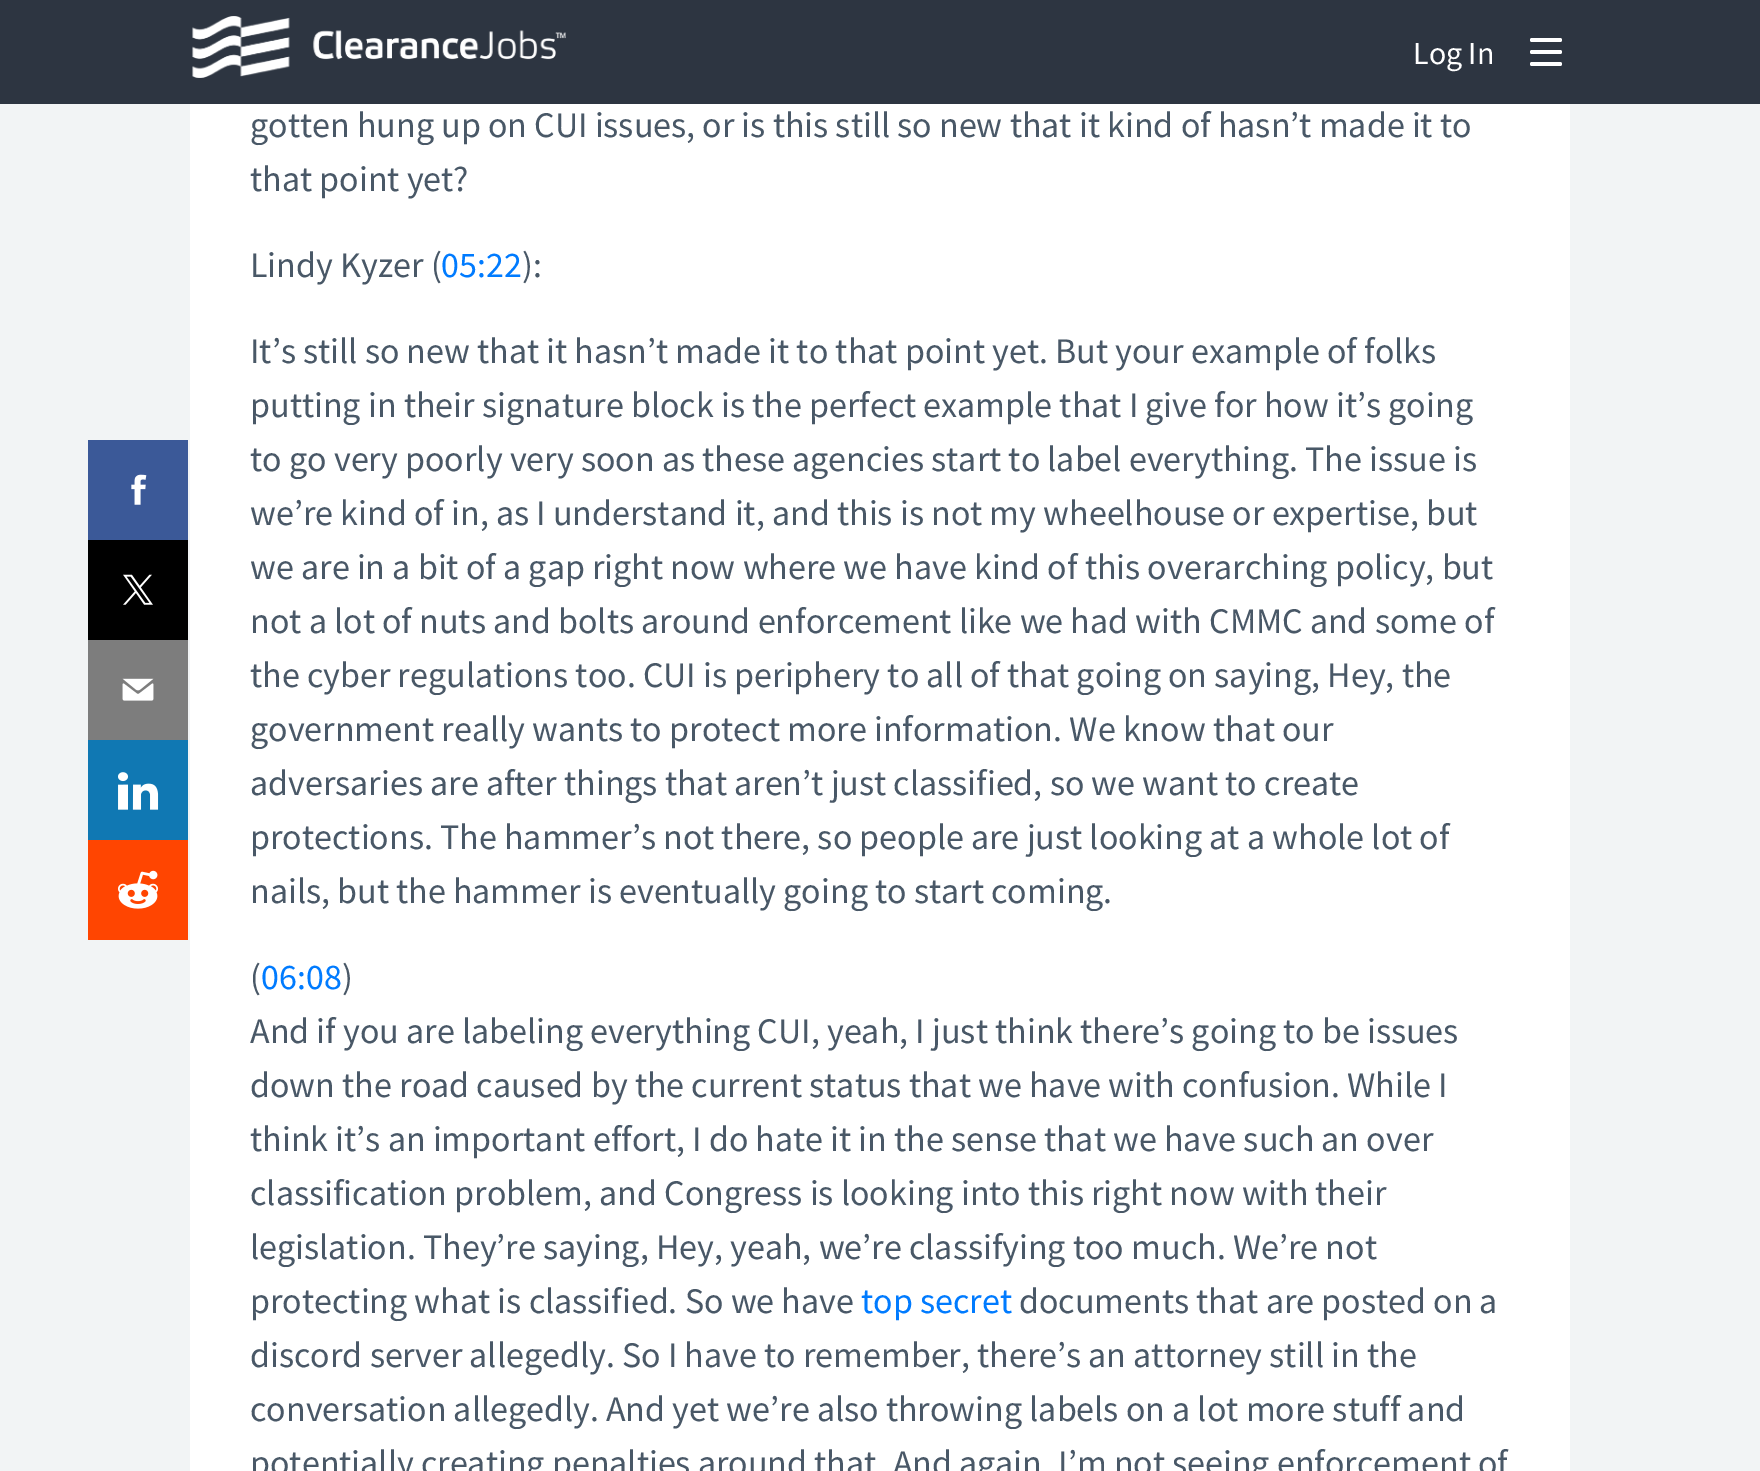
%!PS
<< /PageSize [1760 1471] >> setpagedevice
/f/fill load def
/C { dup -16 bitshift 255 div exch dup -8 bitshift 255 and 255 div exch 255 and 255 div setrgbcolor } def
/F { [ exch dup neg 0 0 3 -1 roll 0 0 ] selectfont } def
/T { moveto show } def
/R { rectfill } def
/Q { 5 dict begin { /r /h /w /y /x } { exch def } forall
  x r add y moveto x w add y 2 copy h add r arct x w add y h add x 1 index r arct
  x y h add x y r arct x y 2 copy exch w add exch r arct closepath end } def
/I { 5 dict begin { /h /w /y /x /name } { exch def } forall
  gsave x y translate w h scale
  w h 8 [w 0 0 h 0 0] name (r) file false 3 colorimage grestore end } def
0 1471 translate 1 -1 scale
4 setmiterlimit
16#F2F4F5 C
0 0 1760 1471 R
16#2D3541 C
0 0 1760 104 R
(1.rgb) 192 16 374 62 I
/SourceSansPro-Regular 32 F
16#FFFFFF C
(Log In) 1413 64 T
1530 38 32 4 2 Q f
1530 50 32 4 2 Q f
1530 62 32 4 2 Q f
190 104 1380 1367 R
16#3B5998 C
88 440 100 100 R
(2.rgb) 131 474 16 31 I
16#000000 C
88 540 100 100 R
(3.rgb) 123 574 30 31 I
16#7D7D7D C
88 640 100 100 R
(4.rgb) 122 678 32 23 I
16#1078B3 C
88 740 100 100 R
(5.rgb) 118 772 41 38 I
16#FF4501 C
88 840 100 100 R
(6.rgb) 118 870 40 39 I
/SourceSansPro-Regular 36 F
16#495867 C
(gotten hung up on CUI issues, or is this still so new that it kind of hasn’t made it to) 250 137 T
(that point yet?) 250 191 T
(Lindy Kyzer \() 250 277 T
16#007BFF C
(05:22) 441 277 T
16#495867 C
(\):) 522 277 T
(It’s still so new that it hasn’t made it to that point yet. But your example of folks) 250 363 T
(putting in their signature block is the perfect example that I give for how it’s going) 250 417 T
(to go very poorly very soon as these agencies start to label everything. The issue is) 250 471 T
(we’re kind of in, as I understand it, and this is not my wheelhouse or expertise, but) 250 525 T
(we are in a bit of a gap right now where we have kind of this overarching policy, but) 250 579 T
(not a lot of nuts and bolts around enforcement like we had with CMMC and some of) 250 633 T
(the cyber regulations too. CUI is periphery to all of that going on saying, Hey, the) 250 687 T
(government really wants to protect more information. We know that our) 250 741 T
(adversaries are after things that aren’t just classified, so we want to create) 250 795 T
(protections. The hammer’s not there, so people are just looking at a whole lot of) 250 849 T
(nails, but the hammer is eventually going to start coming.) 250 903 T
(\() 250 989 T
16#007BFF C
(06:08) 261 989 T
16#495867 C
(\)) 342 989 T
(And if you are labeling everything CUI, yeah, I just think there’s going to be issues) 250 1043 T
(down the road caused by the current status that we have with confusion. While I) 250 1097 T
(think it’s an important effort, I do hate it in the sense that we have such an over) 250 1151 T
(classification problem, and Congress is looking into this right now with their) 250 1205 T
(legislation. They’re saying, Hey, yeah, we’re classifying too much. We’re not) 250 1259 T
(protecting what is classified. So we have) 250 1313 T
16#007BFF C
(top secret) 861 1313 T
16#495867 C
(documents that are posted on a) 1019 1313 T
(discord server allegedly. So I have to remember, there’s an attorney still in the) 250 1367 T
(conversation allegedly. And yet we’re also throwing labels on a lot more stuff and) 250 1421 T
(potentially creating penalties around that. And again, I’m not seeing enforcement of) 250 1475 T
showpage
